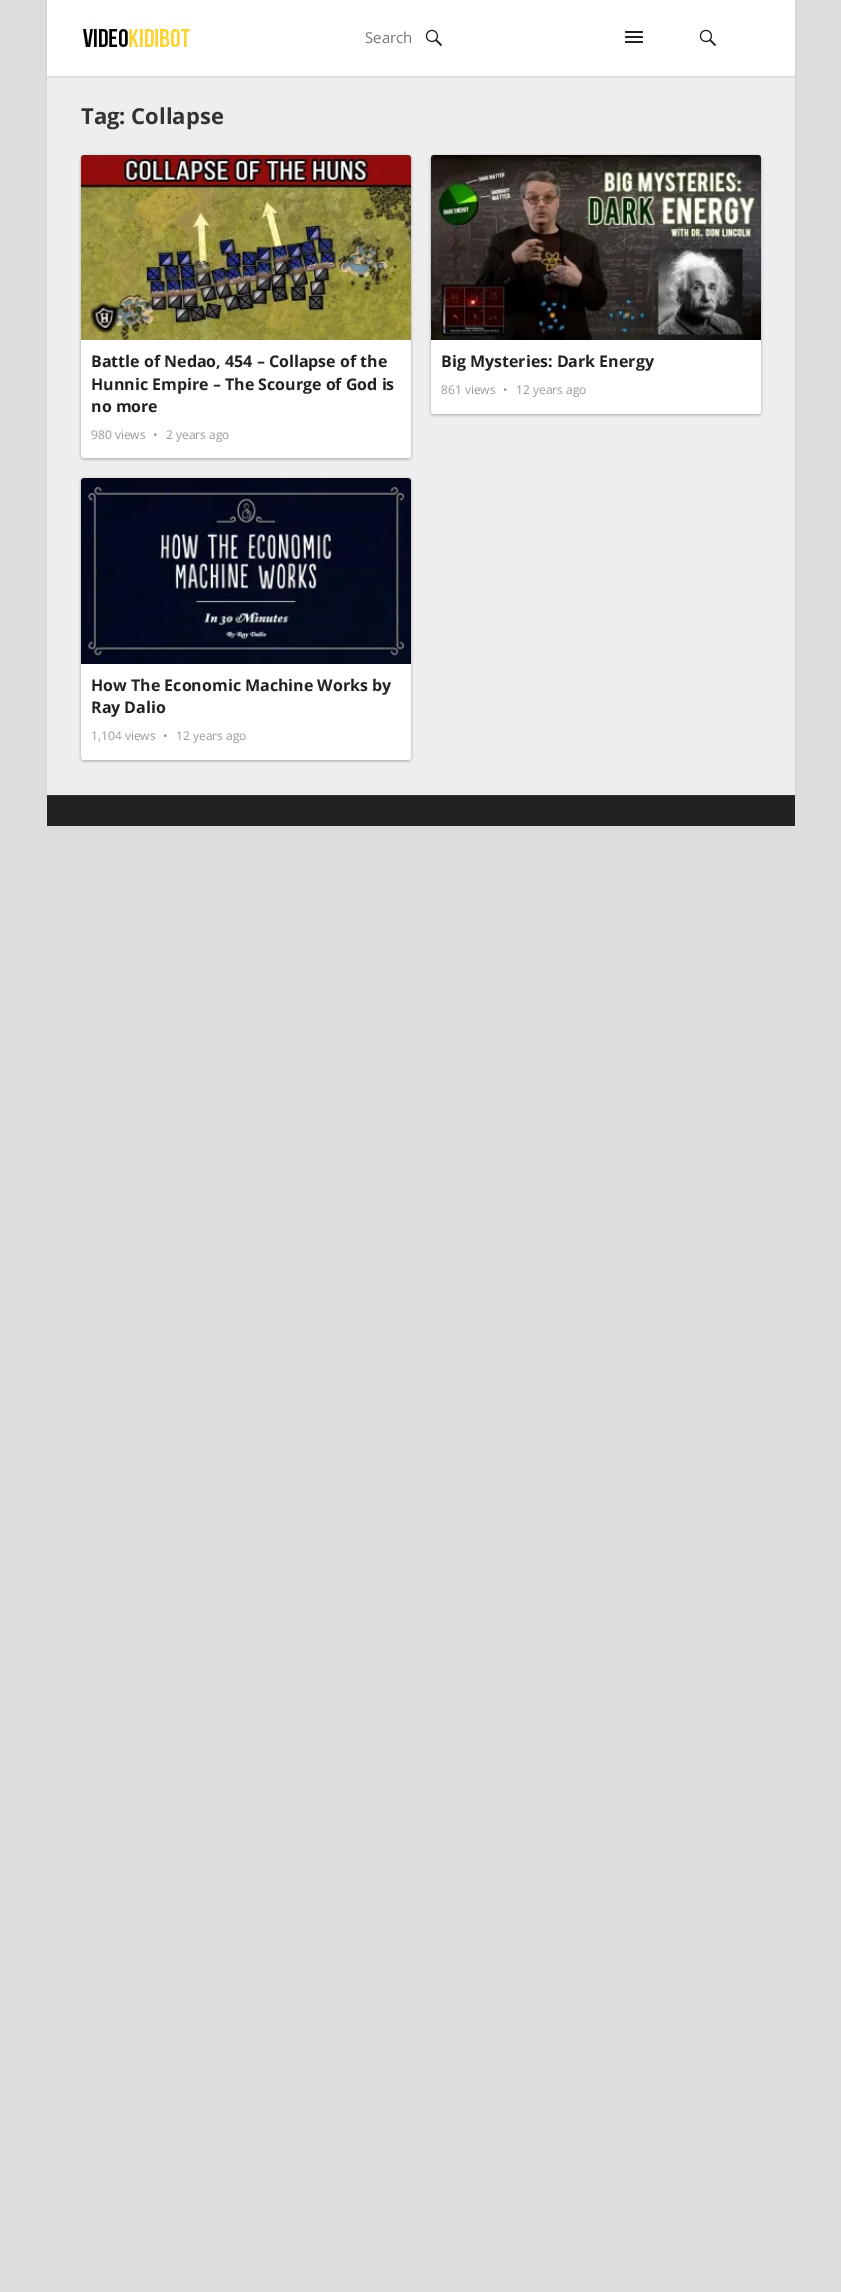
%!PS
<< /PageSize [841 2292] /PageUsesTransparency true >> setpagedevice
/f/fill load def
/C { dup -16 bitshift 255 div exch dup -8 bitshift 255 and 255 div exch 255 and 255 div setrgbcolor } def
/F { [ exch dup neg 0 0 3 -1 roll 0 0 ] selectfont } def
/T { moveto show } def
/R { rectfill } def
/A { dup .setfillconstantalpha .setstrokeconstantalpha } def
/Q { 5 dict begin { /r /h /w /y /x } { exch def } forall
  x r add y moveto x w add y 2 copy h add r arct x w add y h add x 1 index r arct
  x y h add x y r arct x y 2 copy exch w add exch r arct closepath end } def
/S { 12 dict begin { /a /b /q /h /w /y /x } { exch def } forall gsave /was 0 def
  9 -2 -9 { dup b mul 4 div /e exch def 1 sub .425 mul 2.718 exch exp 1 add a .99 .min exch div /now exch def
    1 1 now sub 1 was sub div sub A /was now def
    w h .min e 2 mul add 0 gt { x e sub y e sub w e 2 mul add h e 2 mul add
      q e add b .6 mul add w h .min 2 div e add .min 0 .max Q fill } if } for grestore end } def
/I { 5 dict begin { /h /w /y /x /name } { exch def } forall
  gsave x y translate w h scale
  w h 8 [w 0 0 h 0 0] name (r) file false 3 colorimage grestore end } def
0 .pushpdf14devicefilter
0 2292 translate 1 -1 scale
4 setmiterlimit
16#DDDDDD C
0 0 841 2292 R
16#222222 C
47 796 748 30 R
16#333333 C
47 795 748 1 R
16#000000 C
47 77 748 719 0 1 .1 S
16#EEEEEE C
47 76 748 719 R
16#000000 C
47 1 748 76 0 1 .1 S
16#FFFFFF C
47 0 748 76 R
(1.rgb) 81 23 111 24 I
/OpenSans-Regular 15 F
16#757575 C
(Search) 365 43 T
(2.rgb) 425 29 18 18 I
16#222222 C
625 31 18 2 1 Q f
625 36 18 2 1 Q f
625 41 18 2 1 Q f
(2.rgb) 699 29 18 18 I
/OpenSans-Bold 22 F
16#333333 C
(Tag: Collapse) 81 124 T
16#000000 C
81 156 330 303 3 1.5 .3 S
16#FFFFFF C
81 155 330 303 3 Q f
(3.rgb) 81 155 330 185 I
/OpenSans-Bold 16 F
16#222222 C
(Battle of Nedao, 454 – Collapse of the) 91 367 T
(Hunnic Empire – The Scourge of God is) 91 390 T
(no more) 91 412 T
/OpenSans-Regular 12 F
16#999999 C
(980 views) 91 439 T
(•) 153 439 T
(2 years ago) 166 439 T
16#000000 C
431 156 330 259 3 1.5 .3 S
16#FFFFFF C
431 155 330 259 3 Q f
(4.rgb) 431 155 330 185 I
/OpenSans-Bold 16 F
16#222222 C
(Big Mysteries: Dark Energy) 441 367 T
/OpenSans-Regular 12 F
16#999999 C
(861 views) 441 394 T
(•) 503 394 T
(12 years ago) 516 394 T
16#000000 C
81 479 330 282 3 1.5 .3 S
16#FFFFFF C
81 478 330 282 3 Q f
(5.rgb) 81 478 330 186 I
/OpenSans-Bold 16 F
16#222222 C
(How The Economic Machine Works by) 91 691 T
(Ray Dalio) 91 713 T
/OpenSans-Regular 12 F
16#999999 C
(1,104 views) 91 740 T
(•) 163 740 T
(12 years ago) 176 740 T
.poppdf14devicefilter showpage
